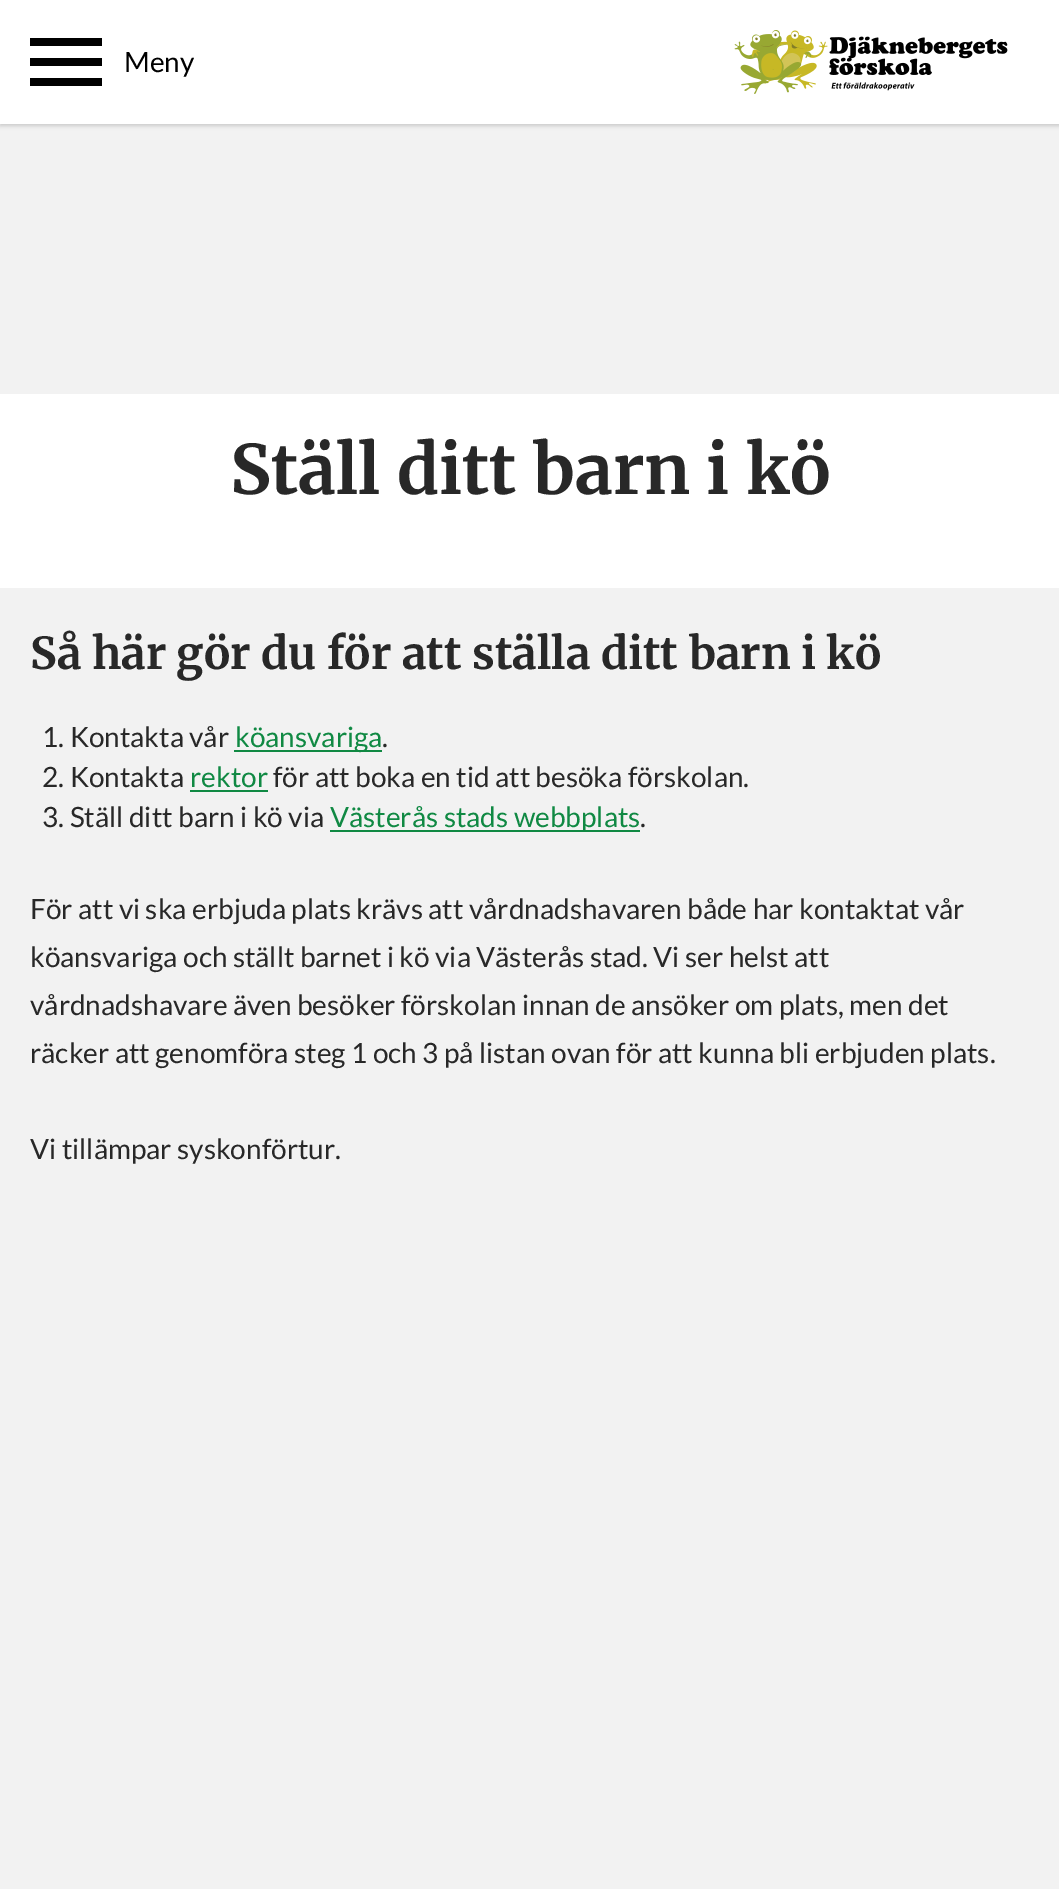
%!PS
<< /PageSize [1059 1889] /PageUsesTransparency true >> setpagedevice
/m/moveto load def
/l/rlineto load def
/z/closepath load def
/f/fill load def
/C { dup -16 bitshift 255 div exch dup -8 bitshift 255 and 255 div exch 255 and 255 div setrgbcolor } def
/F { [ exch dup neg 0 0 3 -1 roll 0 0 ] selectfont } def
/T { moveto show } def
/R { rectfill } def
/A { dup .setfillconstantalpha .setstrokeconstantalpha } def
/Q { 5 dict begin { /r /h /w /y /x } { exch def } forall
  x r add y moveto x w add y 2 copy h add r arct x w add y h add x 1 index r arct
  x y h add x y r arct x y 2 copy exch w add exch r arct closepath end } def
/S { 12 dict begin { /a /b /q /h /w /y /x } { exch def } forall gsave /was 0 def
  9 -2 -9 { dup b mul 4 div /e exch def 1 sub .425 mul 2.718 exch exp 1 add a .99 .min exch div /now exch def
    1 1 now sub 1 was sub div sub A /was now def
    w h .min e 2 mul add 0 gt { x e sub y e sub w e 2 mul add h e 2 mul add
      q e add b .6 mul add w h .min 2 div e add .min 0 .max Q fill } if } for grestore end } def
/I { 5 dict begin { /h /w /y /x /name } { exch def } forall
  gsave x y translate w h scale
  w h 8 [w 0 0 h 0 0] name (r) file false 3 colorimage grestore end } def
0 .pushpdf14devicefilter
0 1889 translate 1 -1 scale
4 setmiterlimit
16#F2F2F2 C
0 0 1059 1889 R
16#000000 C
0 2 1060 124 0 2 .16 S
16#FFFFFF C
0 0 1059 124 R
16#000000 C
30 86 m 72 0 l 0 -8 l -72 0 l z 30 66 m 72 0 l 0 -8 l -72 0 l z 30 38 m 0 8 l 72 0 l 0 -8 l z f
/Lato-Regular 28 F
(Meny) 124 72 T
(1.rgb) 734 30 274 64 I
16#FFFFFF C
0 394 1059 194 R
/Merriweather-Light 68 F
16#282828 C
(Ställ ditt barn i kö) 230 494 T
/Merriweather-Light 44 F
(Så här gör du för att ställa ditt barn i kö) 30 669 T
/Lato-Regular 28 F
(1. Kontakta vår) 42 747 T
16#108943 C
234 750 148 2 R
(köansvariga) 235 747 T
16#282828 C
(.) 382 747 T
(2. Kontakta) 42 787 T
16#108943 C
(rektor) 190 787 T
190 790 78 2 R
16#282828 C
(för att boka en tid att besöka förskolan.) 273 787 T
(3. Ställ ditt barn i kö via) 42 827 T
16#108943 C
330 830 310 2 R
(Västerås stads webbplats) 330 827 T
16#282828 C
(.) 640 827 T
(För att vi ska erbjuda plats krävs att vårdnadshavaren både har kontaktat vår) 30 919 T
(köansvariga och ställt barnet i kö via Västerås stad. Vi ser helst att) 30 967 T
(vårdnadshavare även besöker förskolan innan de ansöker om plats, men det) 30 1015 T
(räcker att genomföra steg 1 och 3 på listan ovan för att kunna bli erbjuden plats.) 30 1063 T
(Vi tillämpar syskonförtur.) 30 1159 T
.poppdf14devicefilter showpage
